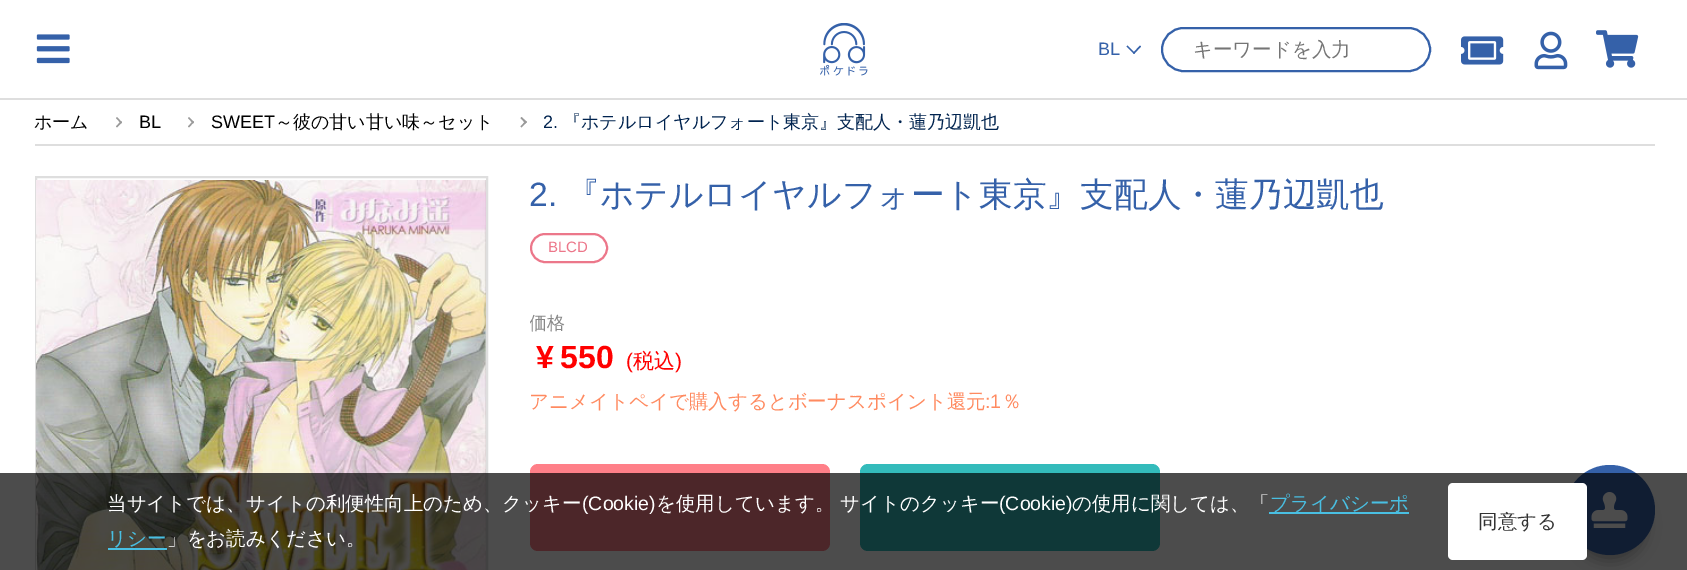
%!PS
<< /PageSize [1687 570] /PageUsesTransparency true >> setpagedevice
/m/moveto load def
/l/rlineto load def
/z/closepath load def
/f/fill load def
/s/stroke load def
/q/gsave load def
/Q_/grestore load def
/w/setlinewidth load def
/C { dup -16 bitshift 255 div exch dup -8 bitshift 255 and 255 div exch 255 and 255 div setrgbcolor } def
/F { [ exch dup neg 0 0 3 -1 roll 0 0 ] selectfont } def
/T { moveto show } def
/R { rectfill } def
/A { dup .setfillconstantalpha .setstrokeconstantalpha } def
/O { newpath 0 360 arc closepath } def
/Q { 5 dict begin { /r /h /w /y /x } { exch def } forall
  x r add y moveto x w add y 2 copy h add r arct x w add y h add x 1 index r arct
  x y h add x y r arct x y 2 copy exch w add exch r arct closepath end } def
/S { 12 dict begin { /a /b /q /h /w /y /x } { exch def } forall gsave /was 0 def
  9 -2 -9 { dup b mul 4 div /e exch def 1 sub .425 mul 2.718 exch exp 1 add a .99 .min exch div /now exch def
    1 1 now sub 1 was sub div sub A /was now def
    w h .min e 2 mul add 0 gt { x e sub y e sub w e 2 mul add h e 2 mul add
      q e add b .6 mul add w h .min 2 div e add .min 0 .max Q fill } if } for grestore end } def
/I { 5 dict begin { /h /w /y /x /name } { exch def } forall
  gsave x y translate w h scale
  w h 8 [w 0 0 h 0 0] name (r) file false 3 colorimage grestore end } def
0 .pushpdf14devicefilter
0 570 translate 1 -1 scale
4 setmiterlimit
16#FFFFFF C
0 0 1687 570 R
16#DEDEDE C
0 98 1687 2 R
(1.rgb) 36 34 34 30 I
(2.rgb) 820 23 48 53 I
/LiberationSans-Regular 18 F
16#3561A9 C
(BL) 1098 55 T
1141 46.5 m -7 7.5 l -1 -1 l 7 -7.5 l z f
1135 53 m -1 1 l -7.5 -7.5 l 1 -1 l z f
2 w
1162 28 268 43 21.5 Q s
/WenQuanYiZenHei-Medium 19.5 F
16#757575 C
(キーワードを入力) 1193 56 T
(3.rgb) 1461 36 43 29 I
(4.rgb) 1534 31 34 39 I
(5.rgb) 1596 30 43 38 I
16#DEDEDE C
35 144 1620 2 R
/WenQuanYiZenHei-Medium 18 F
16#000000 C
(ホーム) 34 128 T
16#9A9A9A C
117 117 m 5 5.5 l -1 1 l -5 -5.5 l z f
121 121 m 1 1.5 l -5 5 l -1 -1 l z f
/LiberationSans-Regular 18 F
16#000000 C
(BL) 139 128 T
16#9A9A9A C
189 117 m 5 5 l -1 1.5 l -5 -5.5 l z f
193 121 m 1 1 l -5 5.5 l -1 -1 l z f
16#000000 C
(SWEET) 211 128 T
/WenQuanYiZenHei-Medium 18 F
(～彼の甘い甘い味～セット) 275 128 T
16#9A9A9A C
521.5 117 m 5.5 5 l -1.5 1.5 l -5 -5.5 l z f
525.5 121 m 1.5 1 l -5.5 5.5 l -1 -1 l z f
/LiberationSans-Regular 18 F
16#00234F C
(2.) 543 128 T
/WenQuanYiZenHei-Medium 18 F
(『ホテルロイヤルフォート東京』支配人・蓮乃辺凱也) 563 128 T
16#DEDEDE C
36 177 451 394 rectstroke
(6.rgb) 36 180 450 390 I
/LiberationSans-Regular 33.75 F
16#3561A9 C
(2.) 529 206 T
/WenQuanYiZenHei-Medium 33.75 F
(『ホテルロイヤルフォート東京』支配人・蓮乃辺凱也) 566 206 T
16#EC778A C
531 234 76 28 14 Q s
/LiberationSans-Regular 15 F
(BLCD) 548 252 T
q
530 263 1080 156 rectclip
/WenQuanYiZenHei-Medium 18 F
16#888888 C
(価格) 529 329 T
Q_
/LiberationSans-Bold 32 F
16#FF0000 C
(¥) 536 368 T
(550) 560 368 T
/LiberationSans-Regular 21 F
(\() 626 368 T
/WenQuanYiZenHei-Medium 21 F
(税込) 633 368 T
/LiberationSans-Regular 21 F
(\)) 675 368 T
/WenQuanYiZenHei-Medium 19.5 F
16#FF8A60 C
(アニメイトペイで購入するとボーナスポイント還元) 529 408 T
/LiberationSans-Regular 19.5 F
(:1) 985 408 T
/WenQuanYiZenHei-Medium 19.5 F
(％) 1002 408 T
16#FF7F88 C
530 464 300 87 8 Q f
16#33BBBB C
860 464 300 87 8 Q f
16#000000 C
1574 489 72 72 36 7.5 .3 S
16#3561A9 C
1610 510 45 O f
(7.rgb) 1591 492 37 36 I
0.7 A
16#000000 C
0 473 1687 97 R
1 A
16#FFFFFF C
(当サイトでは、サイトの利便性向上のため、クッキー) 107 510 T
/LiberationSans-Regular 19.5 F
(\(Cookie\)) 582 510 T
/WenQuanYiZenHei-Medium 19.5 F
(を使用しています。 サイトのクッキー) 656 510 T
/LiberationSans-Regular 19.5 F
(\(Cookie\)) 999 510 T
/WenQuanYiZenHei-Medium 19.5 F
(の使用に関しては、「) 1072 510 T
16#49BFE2 C
1269 512 140 2 R
(プライバシーポ) 1270 510 T
(リシー) 107 545 T
108 548 59 2 R
16#FFFFFF C
(」をお読みください。) 167 545 T
1448 483 139 77 5 Q f
16#333333 C
(同意する) 1478 528 T
.poppdf14devicefilter showpage
